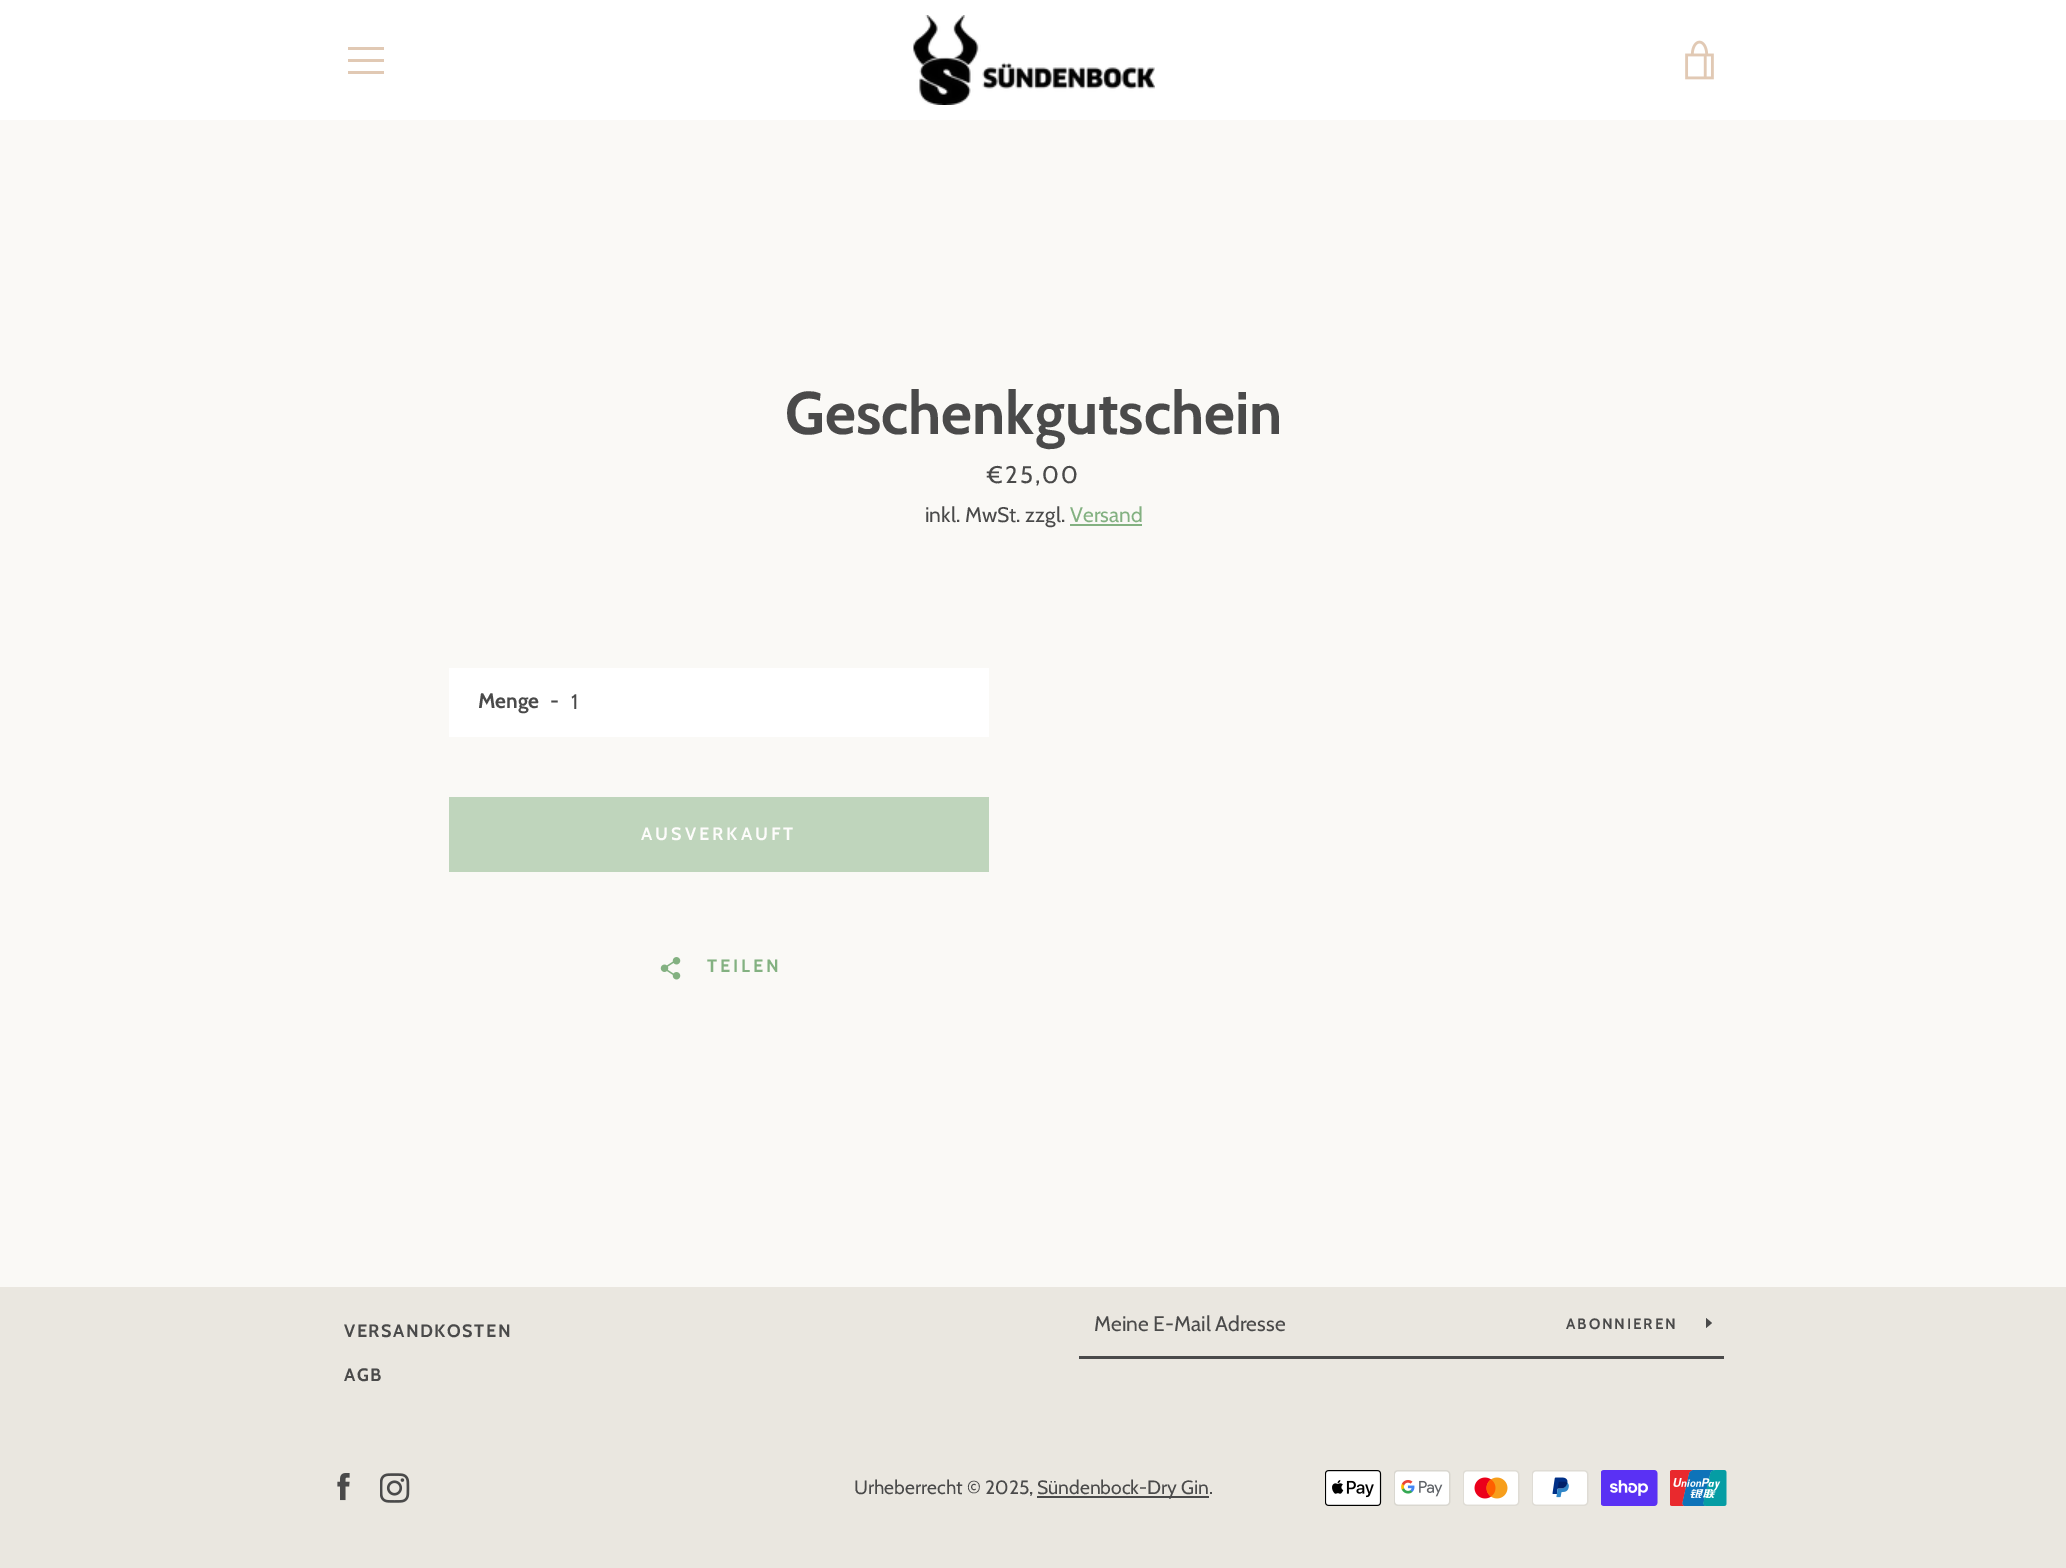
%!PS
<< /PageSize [2066 1568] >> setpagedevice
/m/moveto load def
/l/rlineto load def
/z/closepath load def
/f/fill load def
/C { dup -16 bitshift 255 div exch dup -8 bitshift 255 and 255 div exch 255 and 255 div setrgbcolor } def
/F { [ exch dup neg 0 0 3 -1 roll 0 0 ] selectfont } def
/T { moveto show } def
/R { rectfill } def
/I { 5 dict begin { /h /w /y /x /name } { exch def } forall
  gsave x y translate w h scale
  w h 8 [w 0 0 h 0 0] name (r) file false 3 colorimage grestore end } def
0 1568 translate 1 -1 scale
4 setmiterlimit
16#FAF9F6 C
0 0 2066 1568 R
16#FFFFFF C
0 0 2066 120 R
16#E1C9B4 C
348 47 36 3 R
348 59 36 3 R
348 71 36 3 R
(1.rgb) 913 15 242 90 I
(2.rgb) 1685 40 29 40 I
/Cabin-Bold 60 F
16#4A4A4A C
(Geschenkgutschein) 785 434 T
/Cabin-Regular 24 F
987 483 m 2.25 0 (€25,00) ashow
/Cabin-Regular 21 F
(inkl. MwSt. zzgl.) 925 522 T
16#83B181 C
(Versand) 1070 522 T
1070 524 72 2 R
16#FFFFFF C
449 668 540 69 R
/Cabin-Bold 21 F
16#4A4A4A C
(Menge) 478 708 T
(-) 550 708 T
/Cabin-Regular 21 F
(1) 571 709 T
16#BFD5BC C
449 797 540 75 R
/Cabin-Bold 18 F
16#FDFCFB C
641 840 m 3 0 (AUSVERKAUFT) ashow
(3.rgb) 660 957 21 23 I
16#83B181 C
707 972 m 3 0 (TEILEN) ashow
16#EAE7E0 C
0 1287 2066 281 R
16#4A4A4A C
344 1337 m 1.5 0 (VERSANDKOSTEN) ashow
344 1381 m 1.5 0 (AGB) ashow
1079 1356 645 3 R
/Cabin-Regular 21 F
(Meine E-Mail Adresse) 1094 1331 T
/Cabin-Bold 15 F
1566 1329 m 1.9 0 (ABONNIEREN) ashow
1712 1323 m -6 5 l 0 -10 l z f
(4.rgb) 337 1473 13 28 I
(5.rgb) 380 1473 30 30 I
/Cabin-Regular 19.25 F
(Urheberrecht © 2025,) 854 1494 T
1037 1496 172 2 R
(Sündenbock-Dry Gin.) 1037 1494 T
(6.rgb) 1325 1470 57 36 I
(7.rgb) 1394 1470 57 36 I
(8.rgb) 1463 1470 57 36 I
(9.rgb) 1532 1470 57 36 I
(10.rgb) 1601 1470 57 36 I
(11.rgb) 1670 1470 57 36 I
showpage
